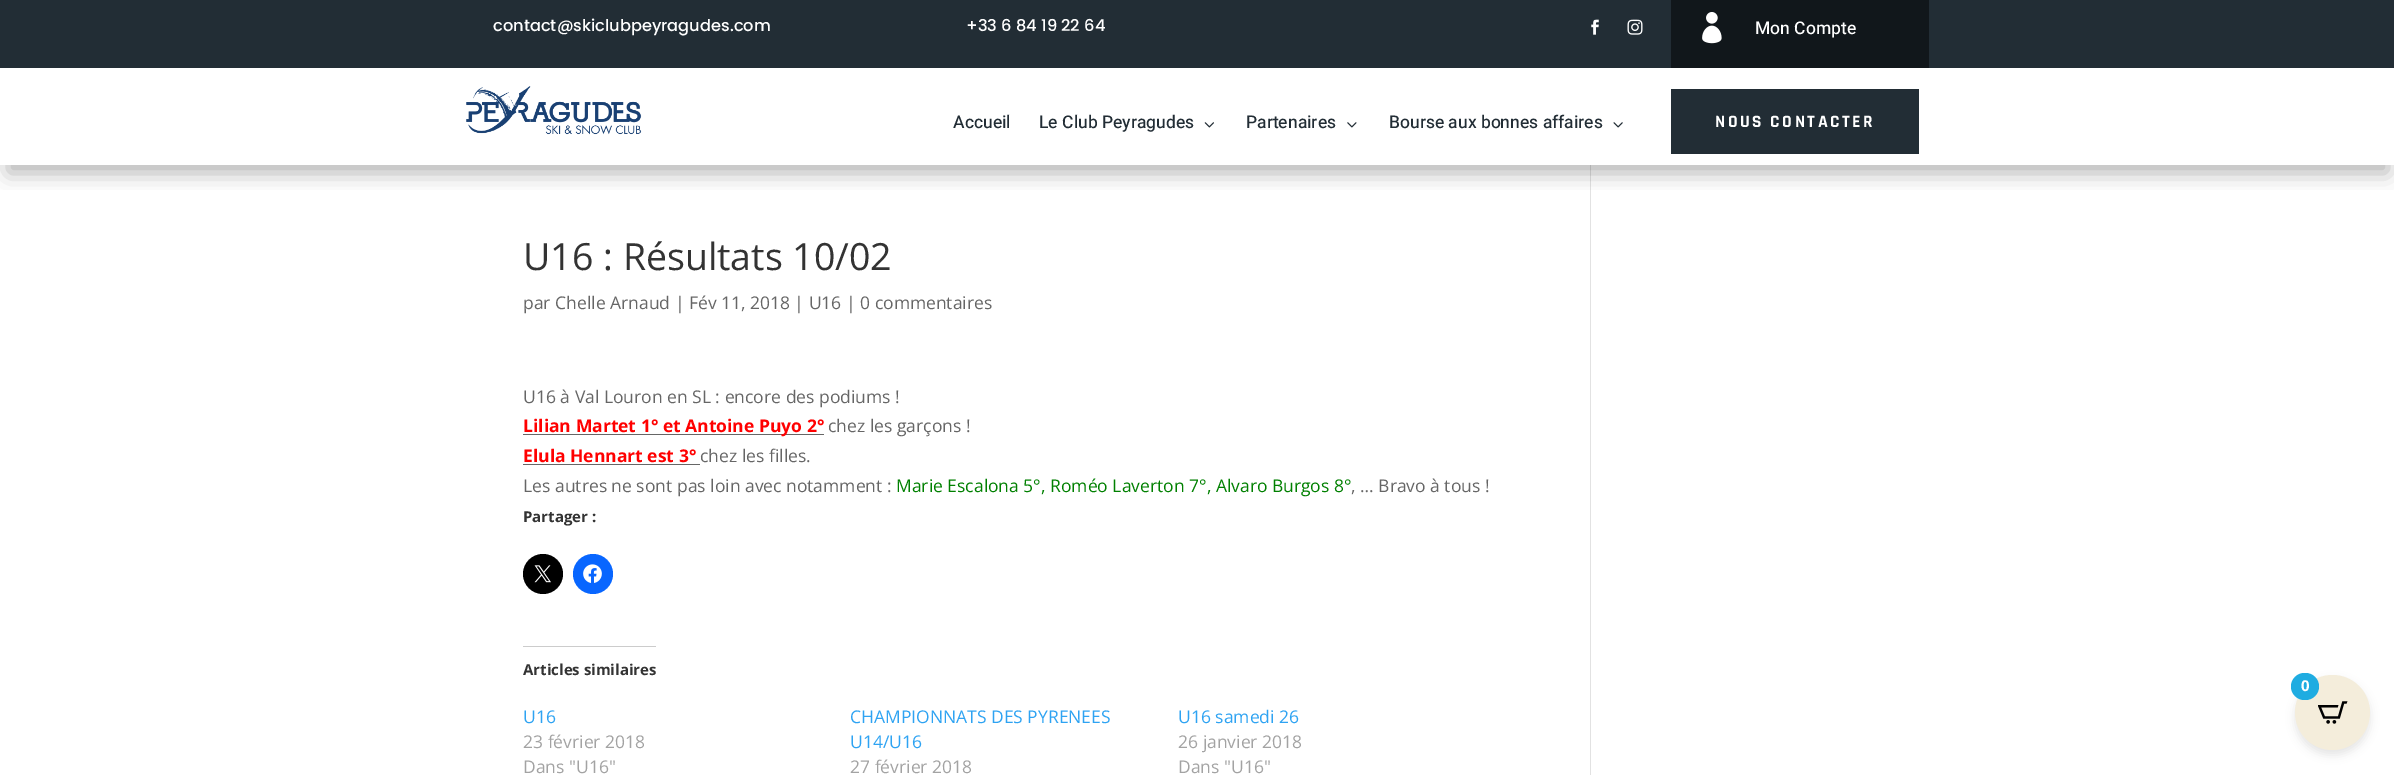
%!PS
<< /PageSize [2394 775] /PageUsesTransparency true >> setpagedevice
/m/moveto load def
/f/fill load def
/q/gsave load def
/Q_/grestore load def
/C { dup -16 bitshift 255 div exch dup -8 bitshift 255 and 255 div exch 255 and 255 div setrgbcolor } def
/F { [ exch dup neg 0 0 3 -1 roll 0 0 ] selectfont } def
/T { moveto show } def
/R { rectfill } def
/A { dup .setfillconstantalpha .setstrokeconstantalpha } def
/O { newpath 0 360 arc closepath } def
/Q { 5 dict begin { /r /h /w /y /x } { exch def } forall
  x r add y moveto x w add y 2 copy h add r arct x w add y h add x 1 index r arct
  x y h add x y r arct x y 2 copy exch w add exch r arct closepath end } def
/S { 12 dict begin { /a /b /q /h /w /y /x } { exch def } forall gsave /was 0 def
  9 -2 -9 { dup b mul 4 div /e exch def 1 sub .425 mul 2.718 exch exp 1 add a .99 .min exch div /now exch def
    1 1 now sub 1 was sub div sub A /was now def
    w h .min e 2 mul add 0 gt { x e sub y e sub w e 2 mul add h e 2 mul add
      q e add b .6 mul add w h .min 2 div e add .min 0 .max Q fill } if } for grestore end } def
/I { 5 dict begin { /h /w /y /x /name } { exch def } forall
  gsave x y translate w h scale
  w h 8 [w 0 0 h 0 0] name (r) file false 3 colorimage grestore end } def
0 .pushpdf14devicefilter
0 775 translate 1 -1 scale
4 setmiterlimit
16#FFFFFF C
0 0 2394 775 R
16#E2E2E2 C
1590 165 1 610 R
q
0 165 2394 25 rectclip
16#000000 C
8 93 2380 80 0 11 .3 S
Q_
16#222D35 C
0 0 2394 68 R
/Poppins-Medium 16.25 F
16#FFFFFF C
(contact@skiclubpeyragudes.com) 493 31 T
(+33 6 84 19 22 64) 966 31 T
(1.rgb) 1591 19 8 16 I
(2.rgb) 1627 19 16 16 I
16#11171B C
1671 0 258 68 R
(3.rgb) 1702 12 20 32 I
/Heebo-Medium 17.5 F
16#FFFFFF C
(Mon Compte) 1755 34 T
(4.rgb) 466 86 176 49 I
16#222D35 C
(Accueil) 953 128 T
(Le Club Peyragudes) 1039 128 T
(5.rgb) 1204 122 10 6 I
(Partenaires) 1246 128 T
(6.rgb) 1347 122 10 6 I
(Bourse aux bonnes affaires) 1389 128 T
(7.rgb) 1613 122 10 6 I
1671 89 248 65 R
/Rajdhani-Bold 17.5 F
16#FFFFFF C
1715 127 m 2.5 0 (NOUS CONTACTER) ashow
/OpenSans-Regular 37.5 F
16#333333 C
(U16 : Résultats 10/02) 523 270 T
/OpenSans-Regular 17.5 F
16#666666 C
(par Chelle Arnaud | Fév 11, 2018 | U16 | 0 commentaires) 523 309 T
(U16 à Val Louron en SL : encore des podiums !) 523 403 T
523 434 301 1 R
/OpenSans-Bold 17.5 F
16#FF0000 C
(Lilian Martet 1° et Antoine Puyo 2°) 523 432 T
/OpenSans-Regular 17.5 F
16#666666 C
(chez les garçons !) 828 432 T
/OpenSans-Bold 17.5 F
16#FF0000 C
(Elula Hennart est 3°) 523 462 T
16#666666 C
523 464 177 1 R
/OpenSans-Regular 17.5 F
(chez les filles.) 700 462 T
(Les autres ne sont pas loin avec notamment :) 523 492 T
16#008000 C
(Marie Escalona 5°, Roméo Laverton 7°, Alvaro Burgos 8°) 896 492 T
16#666666 C
(, … Bravo à tous !) 1351 492 T
/OpenSans-Bold 15 F
16#333333 C
(Partager :) 523 522 T
16#000000 C
543 574 20 O f
(8.rgb) 534 565 17 18 I
16#0866FF C
593 574 20 O f
(9.rgb) 583 564 19 19 I
16#CCCCCC C
523 646 133 1 R
16#333333 C
(Articles similaires) 523 675 T
/OpenSans-Regular 17.5 F
16#2EA3F2 C
(U16) 523 723 T
16#A3A3A3 C
(23 février 2018) 523 748 T
(Dans "U16") 523 773 T
16#2EA3F2 C
(CHAMPIONNATS DES PYRENEES) 850 723 T
(U14/U16) 850 748 T
16#A3A3A3 C
(27 février 2018) 850 773 T
16#2EA3F2 C
(U16 samedi 26) 1178 723 T
16#A3A3A3 C
(26 janvier 2018) 1178 748 T
(Dans "U16") 1178 773 T
16#000000 C
2295 680 75 75 37.5 4.5 .1 S
16#F4EDDB C
2332.5 712.5 37.5 O f
16#1FACE1 C
2291 673 28 27 13.5 Q f
/OpenSans-Bold 15 F
16#FFFFFF C
(0) 2301 691 T
(10.rgb) 2318 701 30 23 I
.poppdf14devicefilter showpage
